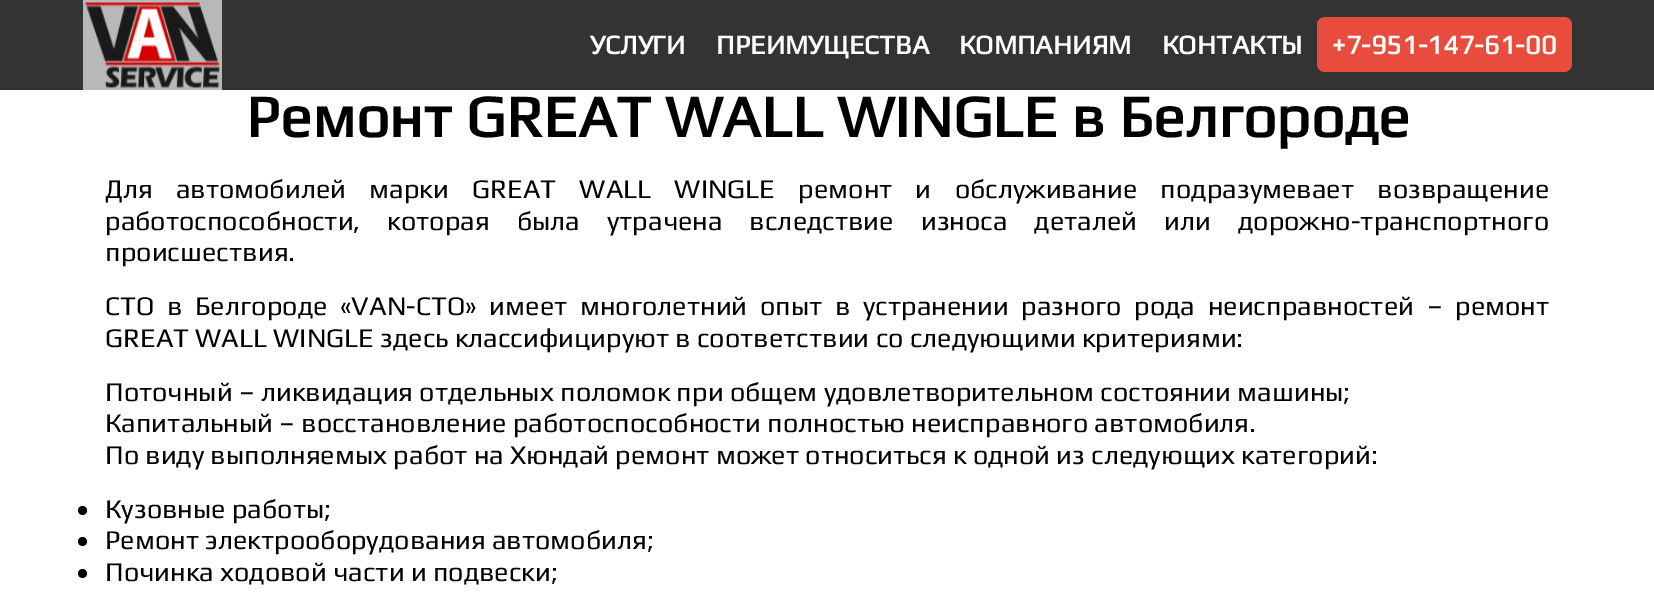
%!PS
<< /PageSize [1654 595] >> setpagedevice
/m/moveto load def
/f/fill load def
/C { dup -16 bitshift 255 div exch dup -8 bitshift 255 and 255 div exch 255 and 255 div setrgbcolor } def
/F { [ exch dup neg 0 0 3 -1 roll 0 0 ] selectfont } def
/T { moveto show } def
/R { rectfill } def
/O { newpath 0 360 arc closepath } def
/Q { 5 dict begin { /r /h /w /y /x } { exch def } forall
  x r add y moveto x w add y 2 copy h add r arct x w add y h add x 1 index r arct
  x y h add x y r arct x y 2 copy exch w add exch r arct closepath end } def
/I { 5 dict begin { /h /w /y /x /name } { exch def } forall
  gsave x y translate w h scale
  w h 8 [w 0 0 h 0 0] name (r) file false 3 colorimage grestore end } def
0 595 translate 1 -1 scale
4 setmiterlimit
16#FFFFFF C
0 0 1654 595 R
16#333333 C
0 0 1654 90 R
16#B8B8B8 C
83 0 139 90 R
(1.rgb) 85 2 135 86 I
/Play-Bold 27 F
16#FFFFFF C
(УСЛУГИ) 590 54 T
(ПРЕИМУЩЕСТВА) 716 54 T
(КОМПАНИЯМ) 959 54 T
(КОНТАКТЫ) 1162 54 T
16#E74C3C C
1317 17 255 55 8 Q f
16#FFFFFF C
(+7-951-147-61-00) 1332 54 T
/Play-Bold 59.4 F
16#000000 C
(Ремонт GREAT WALL WINGLE в Белгороде) 246 137 T
/Play-Regular 27 F
105 198 m 17 0 32 (Для автомобилей марки GREAT WALL WINGLE ремонт и обслуживание подразумевает возвращение) widthshow
105 230 m 20.75 0 32 (работоспособности, которая была утрачена вследствие износа деталей или дорожно-транспортного) widthshow
(происшествия.) 105 261 T
105 315 m 6.4 0 32 (СТО в Белгороде «VAN-СТО» имеет многолетний опыт в устранении разного рода неисправностей – ремонт) widthshow
(GREAT WALL WINGLE здесь классифицируют в соответствии со следующими критериями:) 105 347 T
(Поточный – ликвидация отдельных поломок при общем удовлетворительном состоянии машины;) 105 401 T
(Капитальный – восстановление работоспособности полностью неисправного автомобиля.) 105 432 T
(По виду выполняемых работ на Хюндай ремонт может относиться к одной из следующих категорий:) 105 464 T
82.5 510.5 4.5 O f
(Кузовные работы;) 105 518 T
82.5 541.5 4.5 O f
(Ремонт электрооборудования автомобиля;) 105 549 T
82.5 573.5 4.5 O f
(Починка ходовой части и подвески;) 105 581 T
showpage
